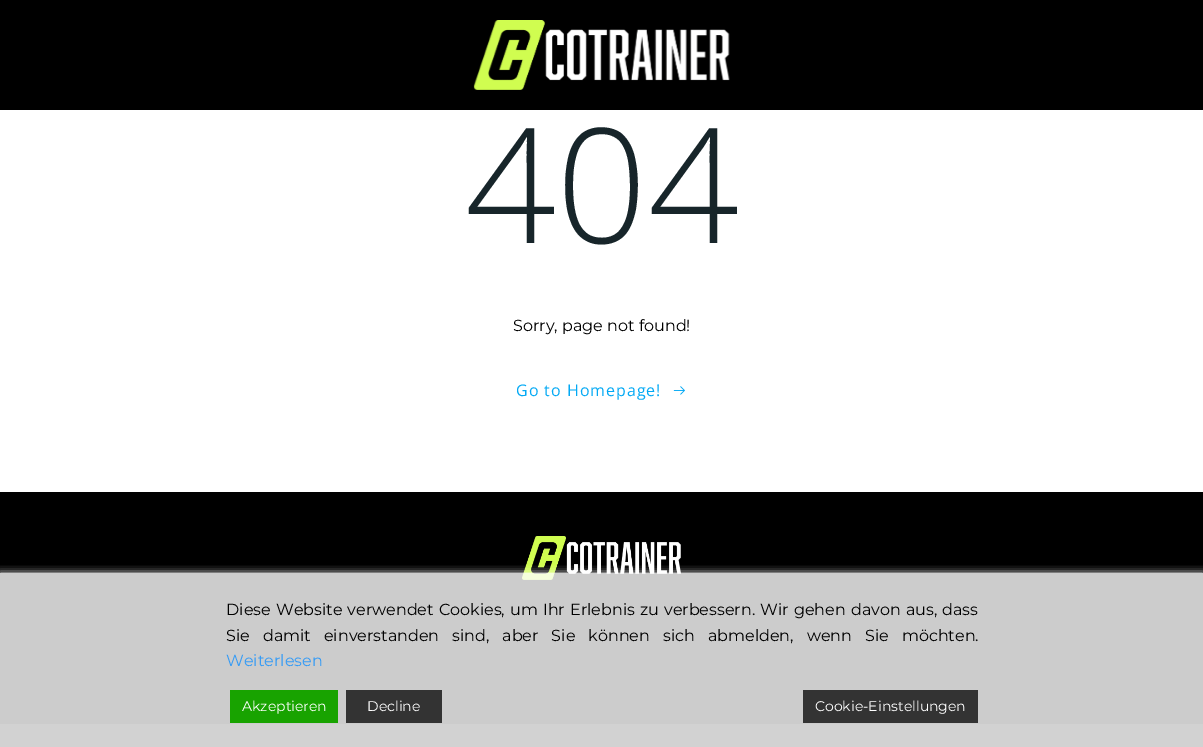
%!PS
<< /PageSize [1203 747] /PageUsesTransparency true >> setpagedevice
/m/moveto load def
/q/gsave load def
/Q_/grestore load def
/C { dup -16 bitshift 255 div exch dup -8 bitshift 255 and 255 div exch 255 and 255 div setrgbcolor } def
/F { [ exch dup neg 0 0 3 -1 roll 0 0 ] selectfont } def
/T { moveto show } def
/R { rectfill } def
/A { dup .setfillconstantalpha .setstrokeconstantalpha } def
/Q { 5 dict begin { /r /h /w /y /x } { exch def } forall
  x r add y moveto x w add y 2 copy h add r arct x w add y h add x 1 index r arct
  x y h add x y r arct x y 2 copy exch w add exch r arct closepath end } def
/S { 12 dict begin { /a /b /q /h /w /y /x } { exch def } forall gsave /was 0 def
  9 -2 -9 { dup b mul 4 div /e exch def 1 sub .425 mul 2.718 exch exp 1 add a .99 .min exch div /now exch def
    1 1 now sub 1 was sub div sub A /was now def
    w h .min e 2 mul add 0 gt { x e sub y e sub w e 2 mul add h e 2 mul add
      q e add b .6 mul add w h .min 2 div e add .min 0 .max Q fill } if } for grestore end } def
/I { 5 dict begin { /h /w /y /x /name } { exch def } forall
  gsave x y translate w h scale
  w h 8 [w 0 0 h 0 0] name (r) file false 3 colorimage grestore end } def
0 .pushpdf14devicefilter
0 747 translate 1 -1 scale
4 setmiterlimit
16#FFFFFF C
0 0 1203 747 R
16#000000 C
0 0 1203 110 R
(1.rgb) 473 20 257 70 I
/OpenSans-Light 160 F
16#17252A C
(404) 465 243 T
/Montserrat-Regular 16 F
16#000000 C
(Sorry, page not found!) 513 331 T
/OpenSans-Regular 16 F
16#03A9F4 C
516 396 m 1 0 (Go to Homepage!) ashow
(2.rgb) 673 386 12 9 I
16#000000 C
0 492 1203 232 R
(3.rgb) 522 536 159 44 I
16#1F1F1F C
0 724 1203 23 R
q
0 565 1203 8 rectclip
16#FFFFFF C
0 573 1203 174 0 4 1 S
Q_
0.8 A
16#FFFFFF C
0 573 1203 174 R
/Montserrat-Regular 16 F
1 A
16#000000 C
226 615 m .9 0 32 (Diese Website verwendet Cookies, um Ihr Erlebnis zu verbessern. Wir gehen davon aus, dass) widthshow
226 641 m 8.75 0 32 (Sie damit einverstanden sind, aber Sie können sich abmelden, wenn Sie möchten.) widthshow
16#359BF5 C
(Weiterlesen) 226 666 T
16#18A300 C
230 690 108 33 R
/Montserrat-Regular 14 F
16#FFFFFF C
(Akzeptieren) 242 711 T
16#333333 C
346 690 96 33 R
16#FFFFFF C
(Decline) 367 711 T
16#333333 C
803 690 175 33 R
16#FFFFFF C
(Cookie-Einstellungen) 815 711 T
.poppdf14devicefilter showpage
